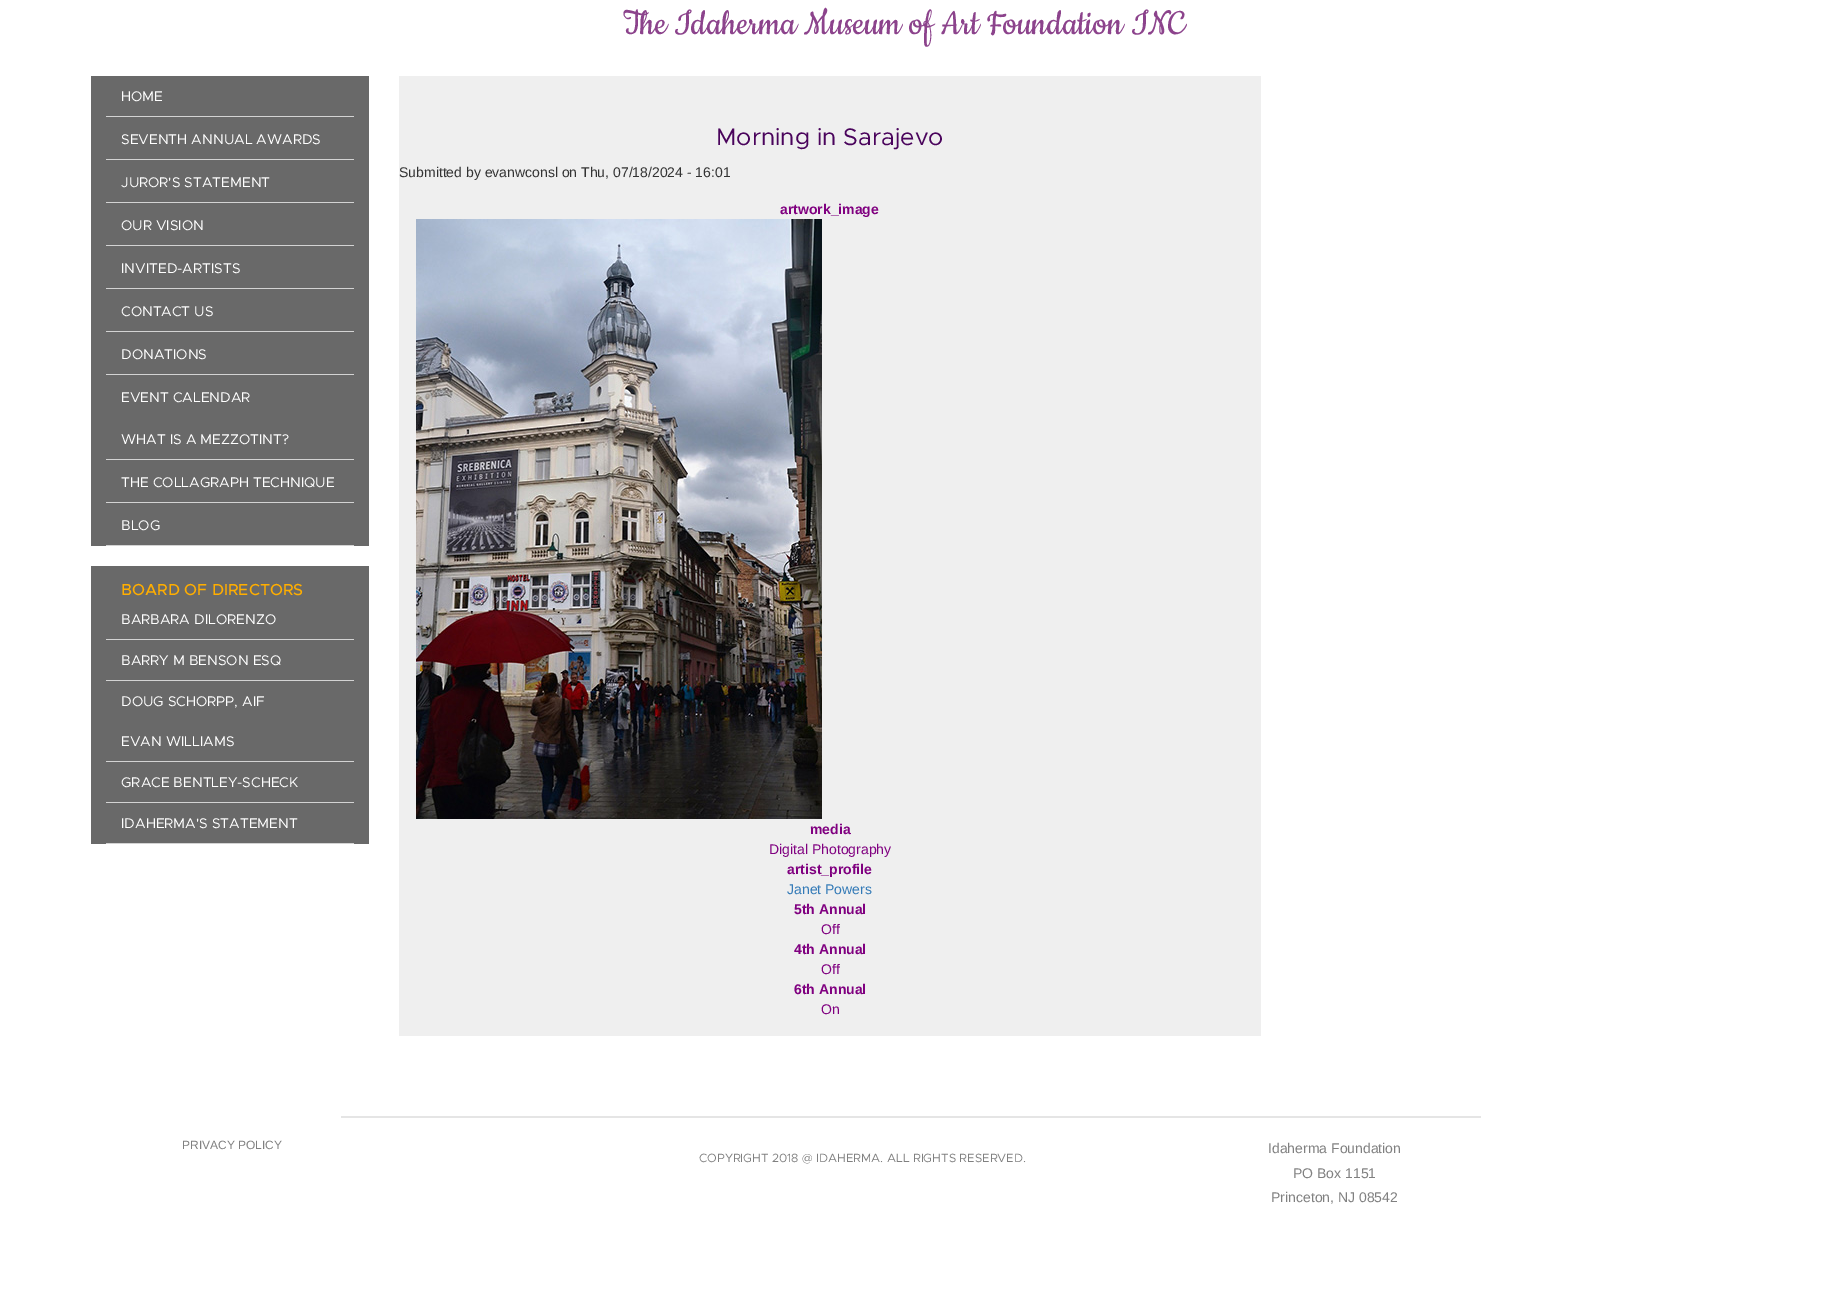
%!PS
<< /PageSize [1822 1299] >> setpagedevice
/C { dup -16 bitshift 255 div exch dup -8 bitshift 255 and 255 div exch 255 and 255 div setrgbcolor } def
/F { [ exch dup neg 0 0 3 -1 roll 0 0 ] selectfont } def
/T { moveto show } def
/R { rectfill } def
/I { 5 dict begin { /h /w /y /x /name } { exch def } forall
  gsave x y translate w h scale
  w h 8 [w 0 0 h 0 0] name (r) file false 3 colorimage grestore end } def
0 1299 translate 1 -1 scale
4 setmiterlimit
16#FFFFFF C
0 0 1822 1299 R
/Cookie-Regular 40 F
16#8C438C C
(The Idaherma Museum of Art Foundation INC) 623 34 T
16#696969 C
91 76 278 470 R
16#D3D3D3 C
106 116 248 1 R
/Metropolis-Regular 14 F
16#FFFFFF C
(HOME) 121 101 T
16#D3D3D3 C
106 159 248 1 R
16#FFFFFF C
(SEVENTH ANNUAL AWARDS) 121 144 T
16#D3D3D3 C
106 202 248 1 R
16#FFFFFF C
(JUROR'S STATEMENT) 121 187 T
16#D3D3D3 C
106 245 248 1 R
16#FFFFFF C
(OUR VISION) 121 230 T
16#D3D3D3 C
106 288 248 1 R
16#FFFFFF C
(INVITED-ARTISTS) 121 273 T
16#D3D3D3 C
106 331 248 1 R
16#FFFFFF C
(CONTACT US) 121 316 T
16#D3D3D3 C
106 374 248 1 R
16#FFFFFF C
(DONATIONS) 121 359 T
(EVENT CALENDAR) 121 402 T
16#D3D3D3 C
106 459 248 1 R
16#FFFFFF C
(WHAT IS A MEZZOTINT?) 121 444 T
16#D3D3D3 C
106 502 248 1 R
16#FFFFFF C
(THE COLLAGRAPH TECHNIQUE) 121 487 T
16#D3D3D3 C
106 545 248 1 R
16#FFFFFF C
(BLOG) 121 530 T
16#696969 C
91 566 278 278 R
/Metropolis-Medium 16 F
16#FFAE00 C
(BOARD OF DIRECTORS) 121 595 T
16#D3D3D3 C
106 639 248 1 R
/Metropolis-Regular 14 F
16#FFFFFF C
(BARBARA DILORENZO) 121 624 T
16#D3D3D3 C
106 680 248 1 R
16#FFFFFF C
(BARRY M BENSON ESQ) 121 665 T
(DOUG SCHORPP, AIF) 121 706 T
16#D3D3D3 C
106 761 248 1 R
16#FFFFFF C
(EVAN WILLIAMS) 121 746 T
16#D3D3D3 C
106 802 248 1 R
16#FFFFFF C
(GRACE BENTLEY-SCHECK) 121 787 T
16#D3D3D3 C
106 843 248 1 R
16#FFFFFF C
(IDAHERMA'S STATEMENT) 121 828 T
16#EFEFEF C
399 76 862 960 R
/Metropolis-Regular 24 F
16#4A045C C
(Morning in Sarajevo) 716 145 T
/LiberationSans-Regular 14 F
16#333333 C
(Submitted by evanwconsl on Thu, 07/18/2024 - 16:01) 399 177 T
/LiberationSans-Bold 14 F
16#800080 C
(artwork_image) 780 214 T
(1.rgb) 416 219 406 600 I
(media) 810 834 T
/LiberationSans-Regular 14 F
(Digital Photography) 769 854 T
/LiberationSans-Bold 14 F
(artist_profile) 787 874 T
/LiberationSans-Regular 14 F
16#337AB7 C
(Janet Powers) 787 894 T
/LiberationSans-Bold 14 F
16#800080 C
(5th Annual) 794 914 T
/LiberationSans-Regular 14 F
(Off) 821 934 T
/LiberationSans-Bold 14 F
(4th Annual) 794 954 T
/LiberationSans-Regular 14 F
(Off) 821 974 T
/LiberationSans-Bold 14 F
(6th Annual) 794 994 T
/LiberationSans-Regular 14 F
(On) 821 1014 T
/LiberationSans-Regular 12 F
16#808080 C
(PRIVACY POLICY) 182 1149 T
16#E5E5E5 C
341 1116 1140 2 R
/Metropolis-Regular 12 F
16#808080 C
(COPYRIGHT 2018 @ IDAHERMA. ALL RIGHTS RESERVED.) 699 1162 T
/LiberationSans-Regular 14 F
(Idaherma Foundation) 1268 1153 T
(PO Box 1151) 1293 1178 T
(Princeton, NJ 08542) 1271 1202 T
showpage
